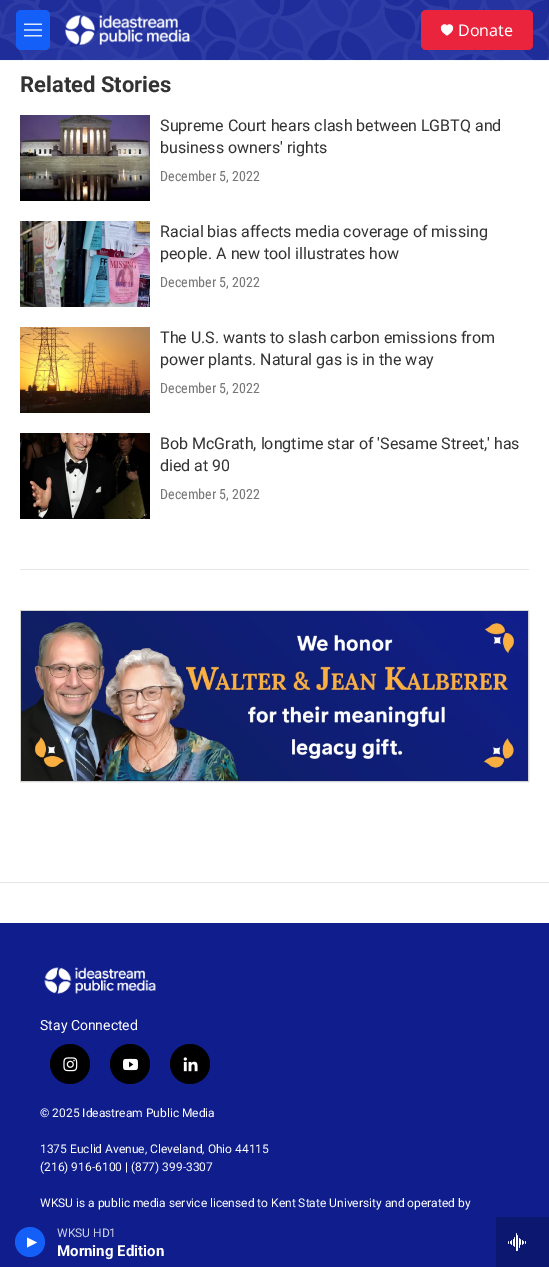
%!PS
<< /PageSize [549 1267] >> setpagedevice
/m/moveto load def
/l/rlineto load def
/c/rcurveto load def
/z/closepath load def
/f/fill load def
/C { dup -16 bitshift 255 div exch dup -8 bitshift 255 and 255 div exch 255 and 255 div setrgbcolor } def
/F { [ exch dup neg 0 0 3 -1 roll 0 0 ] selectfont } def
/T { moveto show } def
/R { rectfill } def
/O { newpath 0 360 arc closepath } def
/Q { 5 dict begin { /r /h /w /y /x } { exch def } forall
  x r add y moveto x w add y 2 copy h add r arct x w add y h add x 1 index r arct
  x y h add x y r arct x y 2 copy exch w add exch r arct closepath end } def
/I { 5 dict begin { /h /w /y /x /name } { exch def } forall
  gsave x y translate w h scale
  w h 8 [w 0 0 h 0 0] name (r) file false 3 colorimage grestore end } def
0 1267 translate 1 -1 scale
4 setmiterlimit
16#FFFFFF C
0 0 549 1267 R
16#F5F5F5 C
0 60 549 1 R
(1.rgb) 0 0 549 60 I
16#145FF8 C
16 10 34 40 5 Q f
(2.rgb) 24 23 18 14 I
(3.rgb) 65 15 125 30 I
16#EA243C C
421 10 112 40 5 Q f
16#FFFFFF C
447 26 m -2 -5 -12.5 2 0 9.5 c 12.5 -7.5 2 -14.5 0 -9.5 c z f
/NotoSans-Regular 16 F
(Donate) 458 36 T
16#0F1E8C C
0 1217 496 50 R
16#145FF8 C
30 1242 15 O f
16#FFFFFF C
27 1237.5 m 10 5 l -10 5 l z f
/Roboto-Regular 12 F
16#CFD2E8 C
(WKSU HD1) 57 1237 T
/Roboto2-Bold 15 F
16#FFFFFF C
(Morning Edition) 57 1256 T
16#0C1870 C
496 1217 53 50 R
(4.rgb) 508 1233 18 18 I
/Roboto-Bold 22 F
16#333333 C
(Related Stories) 20 92 T
16#E6E6E6 C
20 569 509 1 R
(5.rgb) 20 115 130 86 I
/Roboto-Regular 16 F
16#333333 C
(Supreme Court hears clash between LGBTQ and) 160 131 T
(business owners' rights) 160 153 T
/RobotoCondensed-Regular 14 F
16#767676 C
(December 5, 2022) 160 181 T
(6.rgb) 20 221 130 86 I
/Roboto-Regular 16 F
16#333333 C
(Racial bias affects media coverage of missing) 160 237 T
(people. A new tool illustrates how) 160 259 T
/RobotoCondensed-Regular 14 F
16#767676 C
(December 5, 2022) 160 287 T
(7.rgb) 20 327 130 86 I
/Roboto-Regular 16 F
16#333333 C
(The U.S. wants to slash carbon emissions from) 160 343 T
(power plants. Natural gas is in the way) 160 365 T
/RobotoCondensed-Regular 14 F
16#767676 C
(December 5, 2022) 160 393 T
(8.rgb) 20 433 130 86 I
/Roboto-Regular 16 F
16#333333 C
(Bob McGrath, longtime star of 'Sesame Street,' has) 160 449 T
(died at 90) 160 471 T
/RobotoCondensed-Regular 14 F
16#767676 C
(December 5, 2022) 160 499 T
16#D3D3D3 C
20.5 610.5 508 171 rectstroke
(9.rgb) 21 611 507 170 I
16#E6E6E6 C
0 882 549 1 R
16#0F1E8C C
0 923 549 294 R
(10.rgb) 44 967 112 27 I
/Roboto-Regular 14 F
16#FFFFFF C
(Stay Connected) 40 1030 T
16#000000 C
70 1064 20 O f
(11.rgb) 63 1057 15 15 I
130 1064 20 O f
(12.rgb) 123 1058 15 13 I
190 1064 20 O f
(13.rgb) 183 1057 15 15 I
/Roboto-Regular 12 F
16#FFFFFF C
(© 2025 Ideastream Public Media) 40 1117 T
(1375 Euclid Avenue, Cleveland, Ohio 44115) 40 1153 T
(\(216\) 916-6100 | \(877\) 399-3307) 40 1171 T
(WKSU is a public media service licensed to Kent State University and operated by) 40 1207 T
showpage
